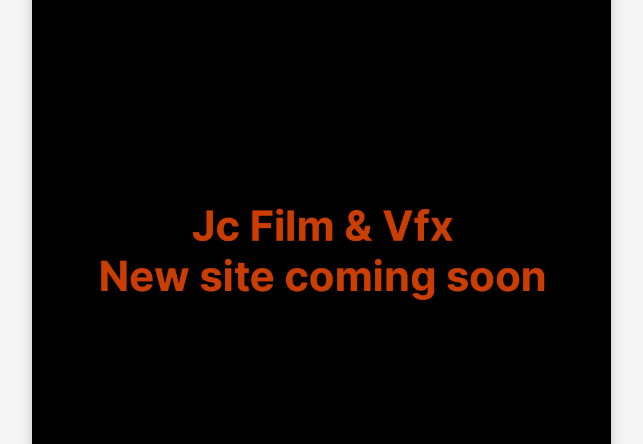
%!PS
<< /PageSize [643 444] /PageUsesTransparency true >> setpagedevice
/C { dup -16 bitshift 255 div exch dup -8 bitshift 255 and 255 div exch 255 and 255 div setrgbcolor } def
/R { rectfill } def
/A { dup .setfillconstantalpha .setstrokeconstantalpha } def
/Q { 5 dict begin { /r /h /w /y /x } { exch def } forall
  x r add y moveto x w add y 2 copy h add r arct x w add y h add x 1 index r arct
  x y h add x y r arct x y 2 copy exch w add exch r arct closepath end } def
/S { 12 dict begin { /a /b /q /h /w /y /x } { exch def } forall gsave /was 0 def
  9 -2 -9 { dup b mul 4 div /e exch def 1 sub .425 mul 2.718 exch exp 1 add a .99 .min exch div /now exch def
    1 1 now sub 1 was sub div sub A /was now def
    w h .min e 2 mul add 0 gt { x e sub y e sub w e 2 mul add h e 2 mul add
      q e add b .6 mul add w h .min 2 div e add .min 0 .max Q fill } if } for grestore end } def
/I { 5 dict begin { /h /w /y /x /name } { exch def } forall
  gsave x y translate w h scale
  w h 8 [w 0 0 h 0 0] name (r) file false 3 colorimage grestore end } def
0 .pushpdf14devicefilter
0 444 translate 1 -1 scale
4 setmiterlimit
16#F5F5F5 C
0 0 643 444 R
16#000000 C
32 -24 579 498 12 6 .2 S
(1.rgb) 32 0 579 444 I
.poppdf14devicefilter showpage
